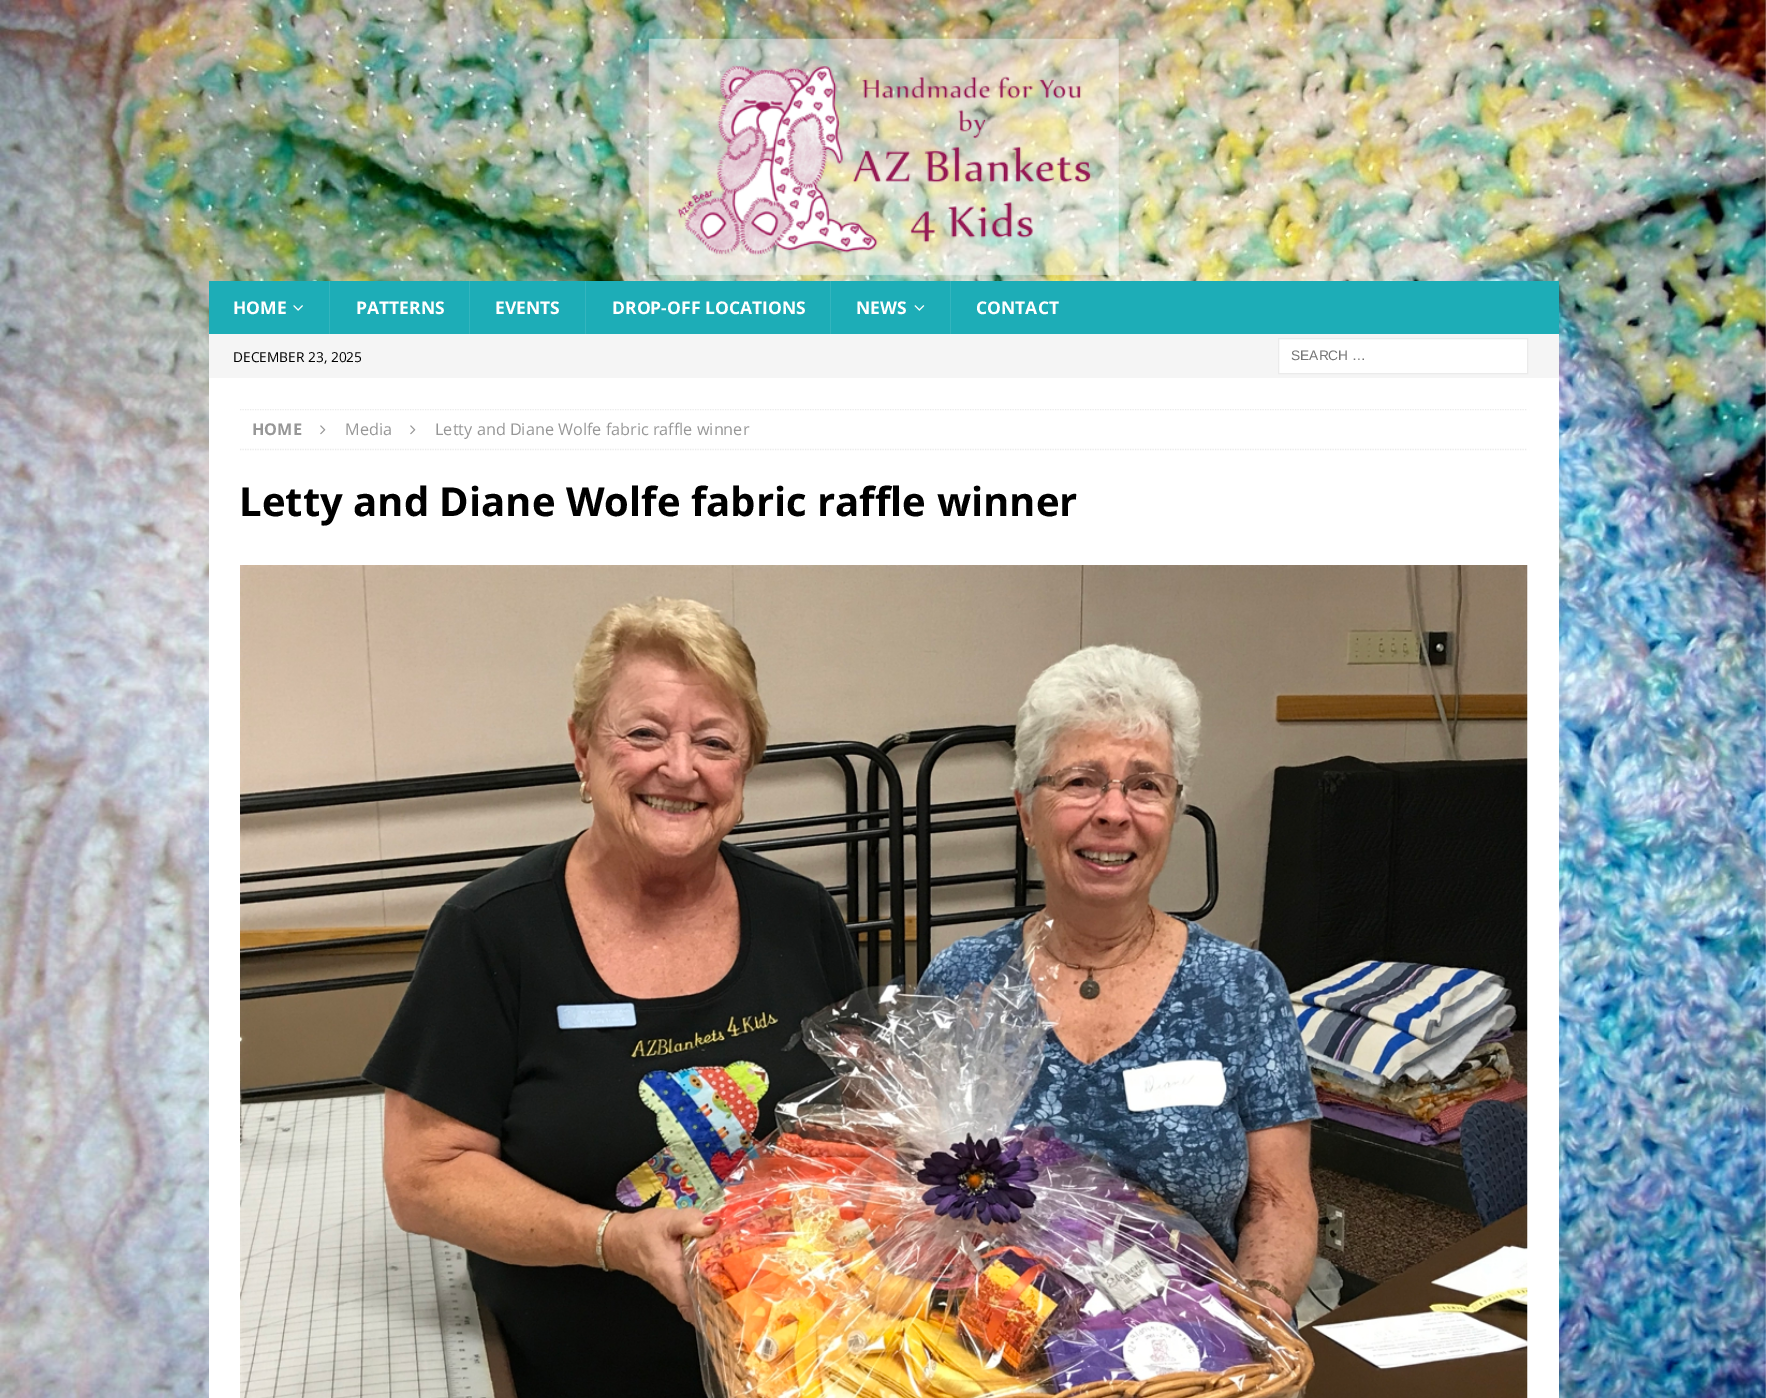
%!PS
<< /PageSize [1766 1398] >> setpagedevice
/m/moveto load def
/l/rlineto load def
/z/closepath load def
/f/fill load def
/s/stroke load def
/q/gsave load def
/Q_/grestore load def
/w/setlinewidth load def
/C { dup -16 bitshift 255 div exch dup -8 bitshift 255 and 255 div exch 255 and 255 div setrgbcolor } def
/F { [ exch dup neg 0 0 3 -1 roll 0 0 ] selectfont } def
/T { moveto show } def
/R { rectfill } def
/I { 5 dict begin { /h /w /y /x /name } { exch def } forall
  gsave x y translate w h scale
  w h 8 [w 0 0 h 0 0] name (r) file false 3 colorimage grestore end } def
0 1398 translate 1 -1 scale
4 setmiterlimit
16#FFFFFF C
0 0 1766 1398 R
(1.rgb) 0 0 1766 1398 I
(2.rgb) 648 38 471 238 I
16#1DADB7 C
209 281 1350 53 R
/OpenSans-Bold 17.5 F
16#FFFFFF C
(HOME) 233 314 T
(3.rgb) 293 305 10 6 I
16#34B5BE C
329 281 1 53 R
16#FFFFFF C
(PATTERNS) 356 314 T
16#34B5BE C
469 281 1 53 R
16#FFFFFF C
(EVENTS) 495 314 T
16#34B5BE C
585 281 1 53 R
16#FFFFFF C
(DROP-OFF LOCATIONS) 612 314 T
16#34B5BE C
830 281 1 53 R
16#FFFFFF C
(NEWS) 856 314 T
(4.rgb) 914 305 11 6 I
16#34B5BE C
950 281 1 53 R
16#FFFFFF C
(CONTACT) 976 314 T
16#F5F5F5 C
209 334 1350 44 R
/OpenSans-Regular 13.75 F
16#000000 C
(DECEMBER 23, 2025) 233 362 T
16#FFFFFF C
1278.5 338.5 m 249 0 l 0 35 l -249 0 l z q f Q_
16#EBEBEB C
s
/LiberationSans-Regular 13.75 F
16#757575 C
(SEARCH …) 1291 360 T
16#FFFFFF C
209 378 1350 1020 R
q
240 409 1288 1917 rectclip
16#EBEBEB C
1.2 w
[1.25 1.25] 0 setdash
240 409.5 m 1287.5 0 l s
Q_
16#EBEBEB C
1.2 w
[1.25 1.25] 0 setdash
240 449.5 m 1287.5 0 l s
/OpenSans-Bold 16.25 F
16#979797 C
(HOME) 252 435 T
(5.rgb) 320 425 6 10 I
/OpenSans-Regular 16.25 F
(Media) 345 435 T
(5.rgb) 410 425 6 10 I
(Letty and Diane Wolfe fabric raffle winner) 435 435 T
/OpenSans-Bold 40 F
16#000000 C
(Letty and Diane Wolfe fabric raffle winner) 239 516 T
(6.rgb) 240 565 1288 833 I
showpage
